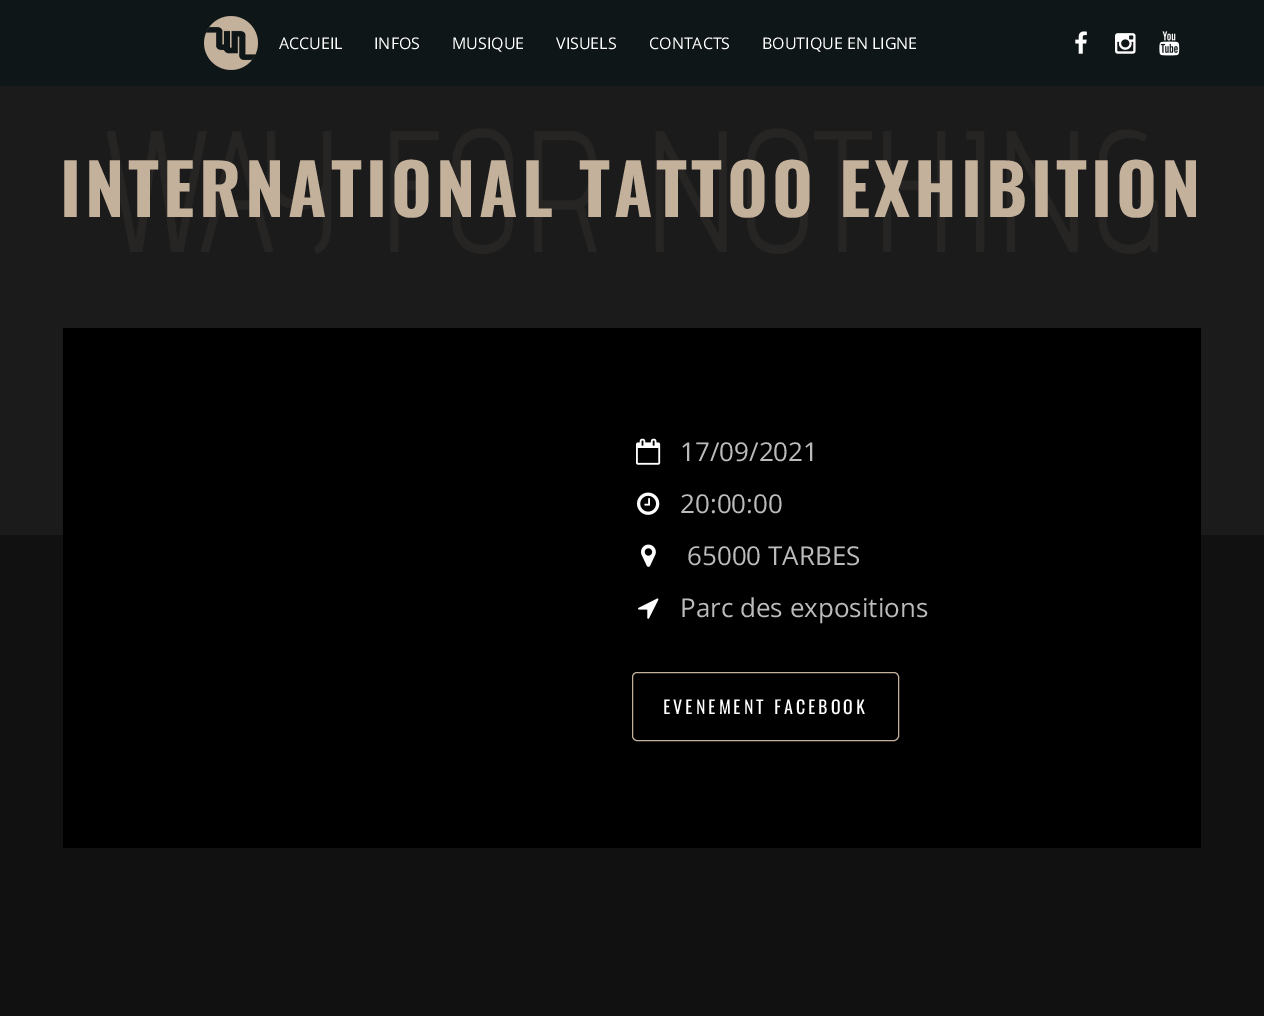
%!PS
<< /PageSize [1264 1016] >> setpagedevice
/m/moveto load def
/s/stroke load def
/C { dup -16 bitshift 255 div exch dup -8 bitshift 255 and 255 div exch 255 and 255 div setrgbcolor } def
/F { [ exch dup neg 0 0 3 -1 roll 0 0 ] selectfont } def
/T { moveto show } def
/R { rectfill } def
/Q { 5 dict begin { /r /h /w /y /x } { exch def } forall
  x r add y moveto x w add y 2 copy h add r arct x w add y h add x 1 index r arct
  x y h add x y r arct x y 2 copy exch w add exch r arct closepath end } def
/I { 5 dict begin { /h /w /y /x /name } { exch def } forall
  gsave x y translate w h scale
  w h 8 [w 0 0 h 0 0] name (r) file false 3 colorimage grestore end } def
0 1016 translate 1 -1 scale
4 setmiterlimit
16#1B1B1B C
0 0 1264 1016 R
16#0F1617 C
0 0 1264 86 R
(1.rgb) 204 16 54 54 I
/OpenSans-Regular 16 F
16#FFFFFF C
(ACCUEIL) 279 49 T
(INFOS) 374 49 T
(MUSIQUE) 452 49 T
(VISUELS) 556 49 T
(CONTACTS) 649 49 T
(BOUTIQUE EN LIGNE) 762 49 T
(2.rgb) 1075 31 12 23 I
(3.rgb) 1115 33 21 21 I
(4.rgb) 1159 31 21 25 I
(5.rgb) 107 128 1051 126 I
/Oswald-Bold 70 F
16#C4B19C C
60 217 m 4 0 (INTERNATIONAL TATTOO EXHIBITION) ashow
16#111111 C
0 535 1264 481 R
16#000000 C
63 328 1138 520 R
(6.rgb) 636 438 25 27 I
/OpenSans-Regular 26 F
16#BBBBBB C
(17/09/2021) 680 461 T
(7.rgb) 637 492 23 23 I
(20:00:00) 680 513 T
(8.rgb) 641 544 15 23 I
(65000 TARBES) 687 565 T
(9.rgb) 638 598 21 21 I
(Parc des expositions) 680 617 T
16#C4B19C C
632.5 672.5 266 68 4.5 Q s
/Oswald-Regular 18 F
16#FFFFFF C
663 714 m 3 0 (EVENEMENT FACEBOOK) ashow
showpage
